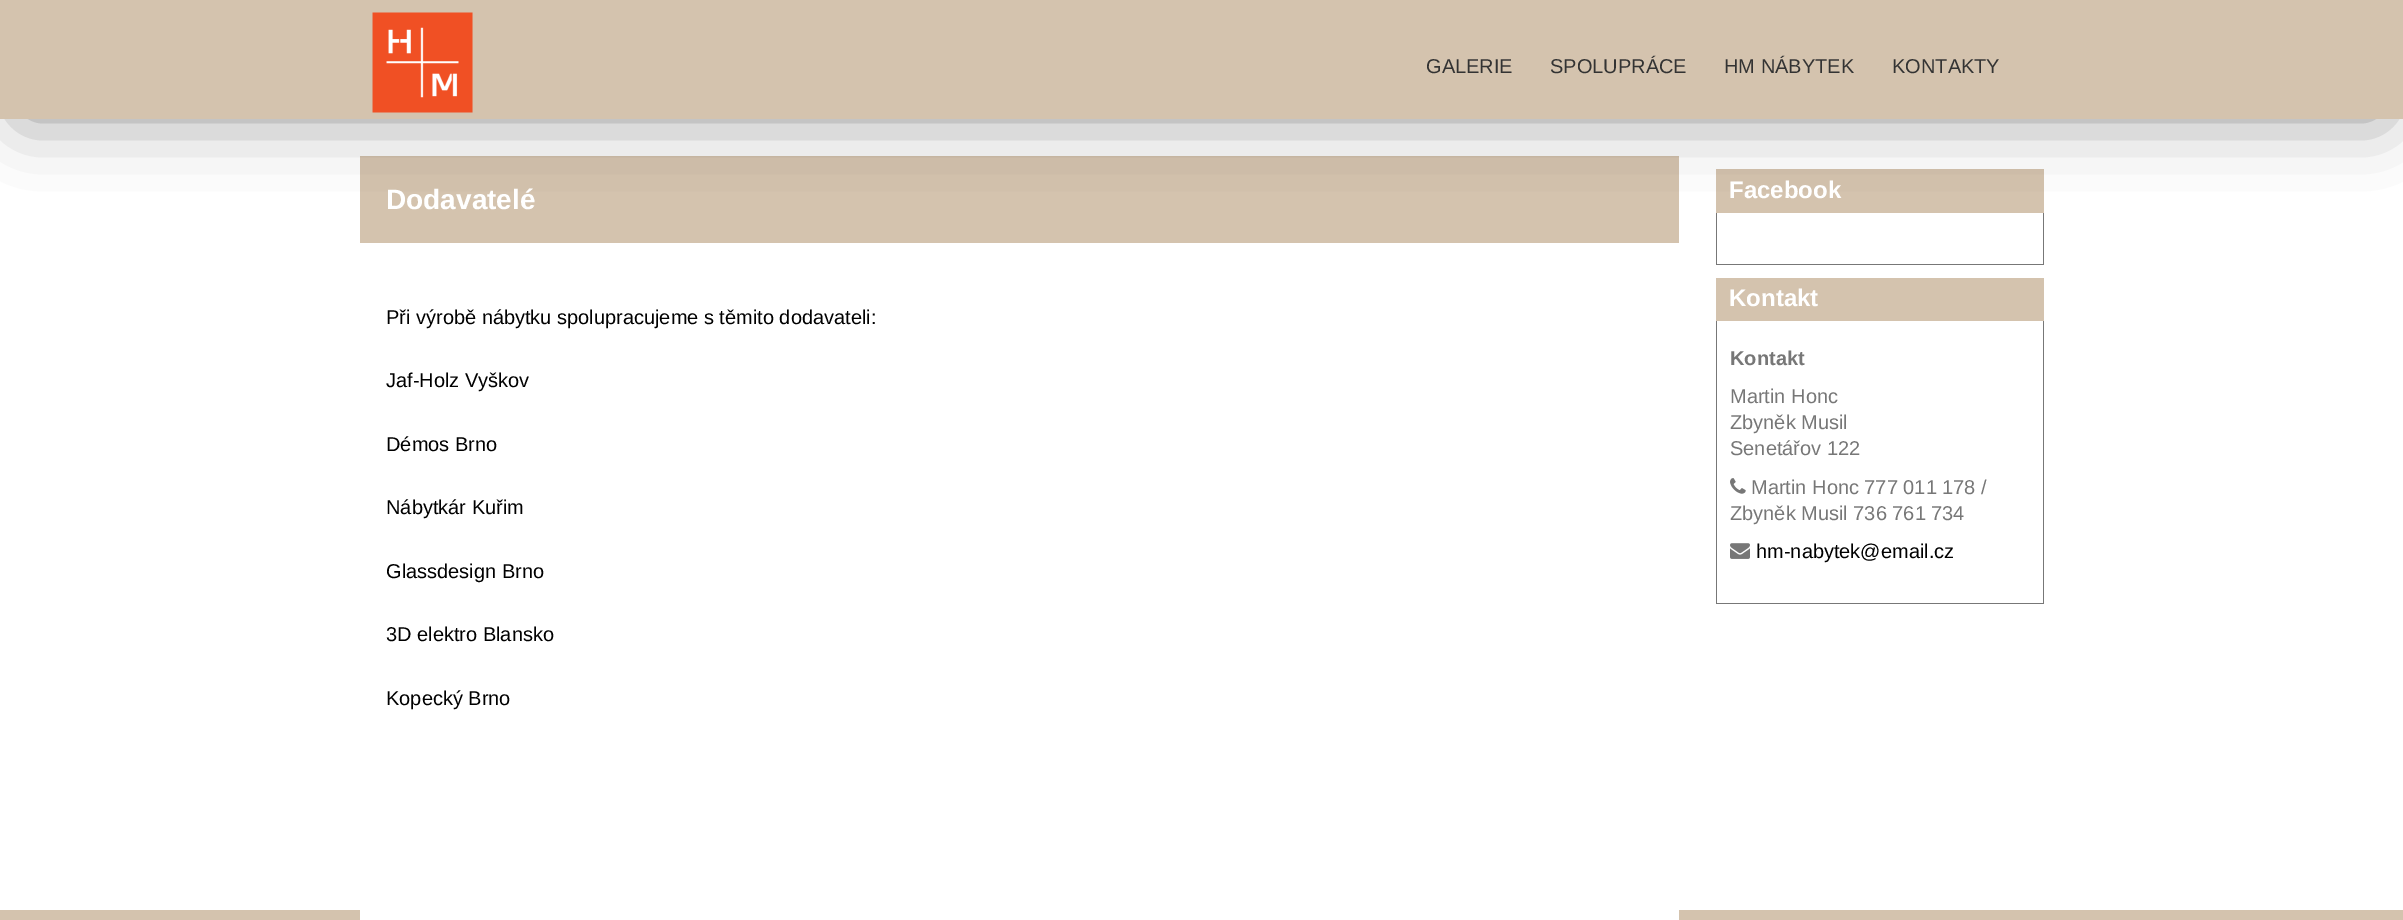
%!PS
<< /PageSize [2403 920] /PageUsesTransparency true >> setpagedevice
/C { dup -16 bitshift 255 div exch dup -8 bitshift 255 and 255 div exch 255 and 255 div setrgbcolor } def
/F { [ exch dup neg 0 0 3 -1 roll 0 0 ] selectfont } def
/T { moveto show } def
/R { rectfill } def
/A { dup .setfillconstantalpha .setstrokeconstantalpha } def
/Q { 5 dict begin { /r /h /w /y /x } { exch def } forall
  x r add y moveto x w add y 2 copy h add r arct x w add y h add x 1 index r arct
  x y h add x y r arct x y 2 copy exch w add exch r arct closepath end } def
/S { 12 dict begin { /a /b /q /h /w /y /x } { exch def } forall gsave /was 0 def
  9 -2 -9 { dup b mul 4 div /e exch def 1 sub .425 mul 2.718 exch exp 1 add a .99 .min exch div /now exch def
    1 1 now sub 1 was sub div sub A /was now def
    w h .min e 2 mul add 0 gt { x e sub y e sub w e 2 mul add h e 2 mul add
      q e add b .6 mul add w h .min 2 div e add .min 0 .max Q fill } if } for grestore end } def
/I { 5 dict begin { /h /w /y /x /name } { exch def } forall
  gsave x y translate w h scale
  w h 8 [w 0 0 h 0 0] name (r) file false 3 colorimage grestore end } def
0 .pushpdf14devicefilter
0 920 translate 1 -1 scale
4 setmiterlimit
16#FFFFFF C
0 0 2403 920 R
16#D4C3AE C
360 156 1319 87 R
1716 169 328 44 R
16#777777 C
2043 213 1 52 R
1716 264 328 1 R
1716 213 1 52 R
16#000000 C
23 41 2358 74 0 34 .45 S
16#D4C3AE C
0 0 2403 119 R
(1.rgb) 372 12 101 101 I
/LiberationSans-Regular 20 F
16#333333 C
(GALERIE) 1426 73 T
(SPOLUPRÁCE) 1550 73 T
(HM NÁBYTEK) 1724 73 T
(KONTAKTY) 1892 73 T
/LiberationSans-Bold 28 F
16#FFFFFF C
(Dodavatelé) 386 209 T
16#D4C3AE C
0 910 2403 10 R
16#FFFFFF C
360 910 1319 10 R
/LiberationSans-Regular 20 F
16#000000 C
(Při výrobě nábytku spolupracujeme s těmito dodavateli:) 386 324 T
(Jaf-Holz Vyškov) 386 387 T
(Démos Brno) 386 451 T
(Nábytkár Kuřim) 386 514 T
(Glassdesign Brno) 386 578 T
(3D elektro Blansko) 386 641 T
(Kopecký Brno) 386 705 T
/LiberationSans-Bold 24 F
16#FFFFFF C
(Facebook) 1729 198 T
16#D4C3AE C
1716 278 328 43 R
16#FFFFFF C
(Kontakt) 1729 306 T
16#777777 C
2043 321 1 283 R
1716 603 328 1 R
1716 321 1 283 R
/LiberationSans-Bold 20 F
(Kontakt) 1730 365 T
/LiberationSans-Regular 20 F
(Martin Honc) 1730 403 T
(Zbyněk Musil) 1730 429 T
(Senetářov 122) 1730 455 T
(2.rgb) 1730 478 16 16 I
(Martin Honc 777 011 178 /) 1751 494 T
(Zbyněk Musil 736 761 734) 1730 520 T
(3.rgb) 1730 543 20 16 I
16#000000 C
(hm-nabytek@email.cz) 1756 558 T
.poppdf14devicefilter showpage
